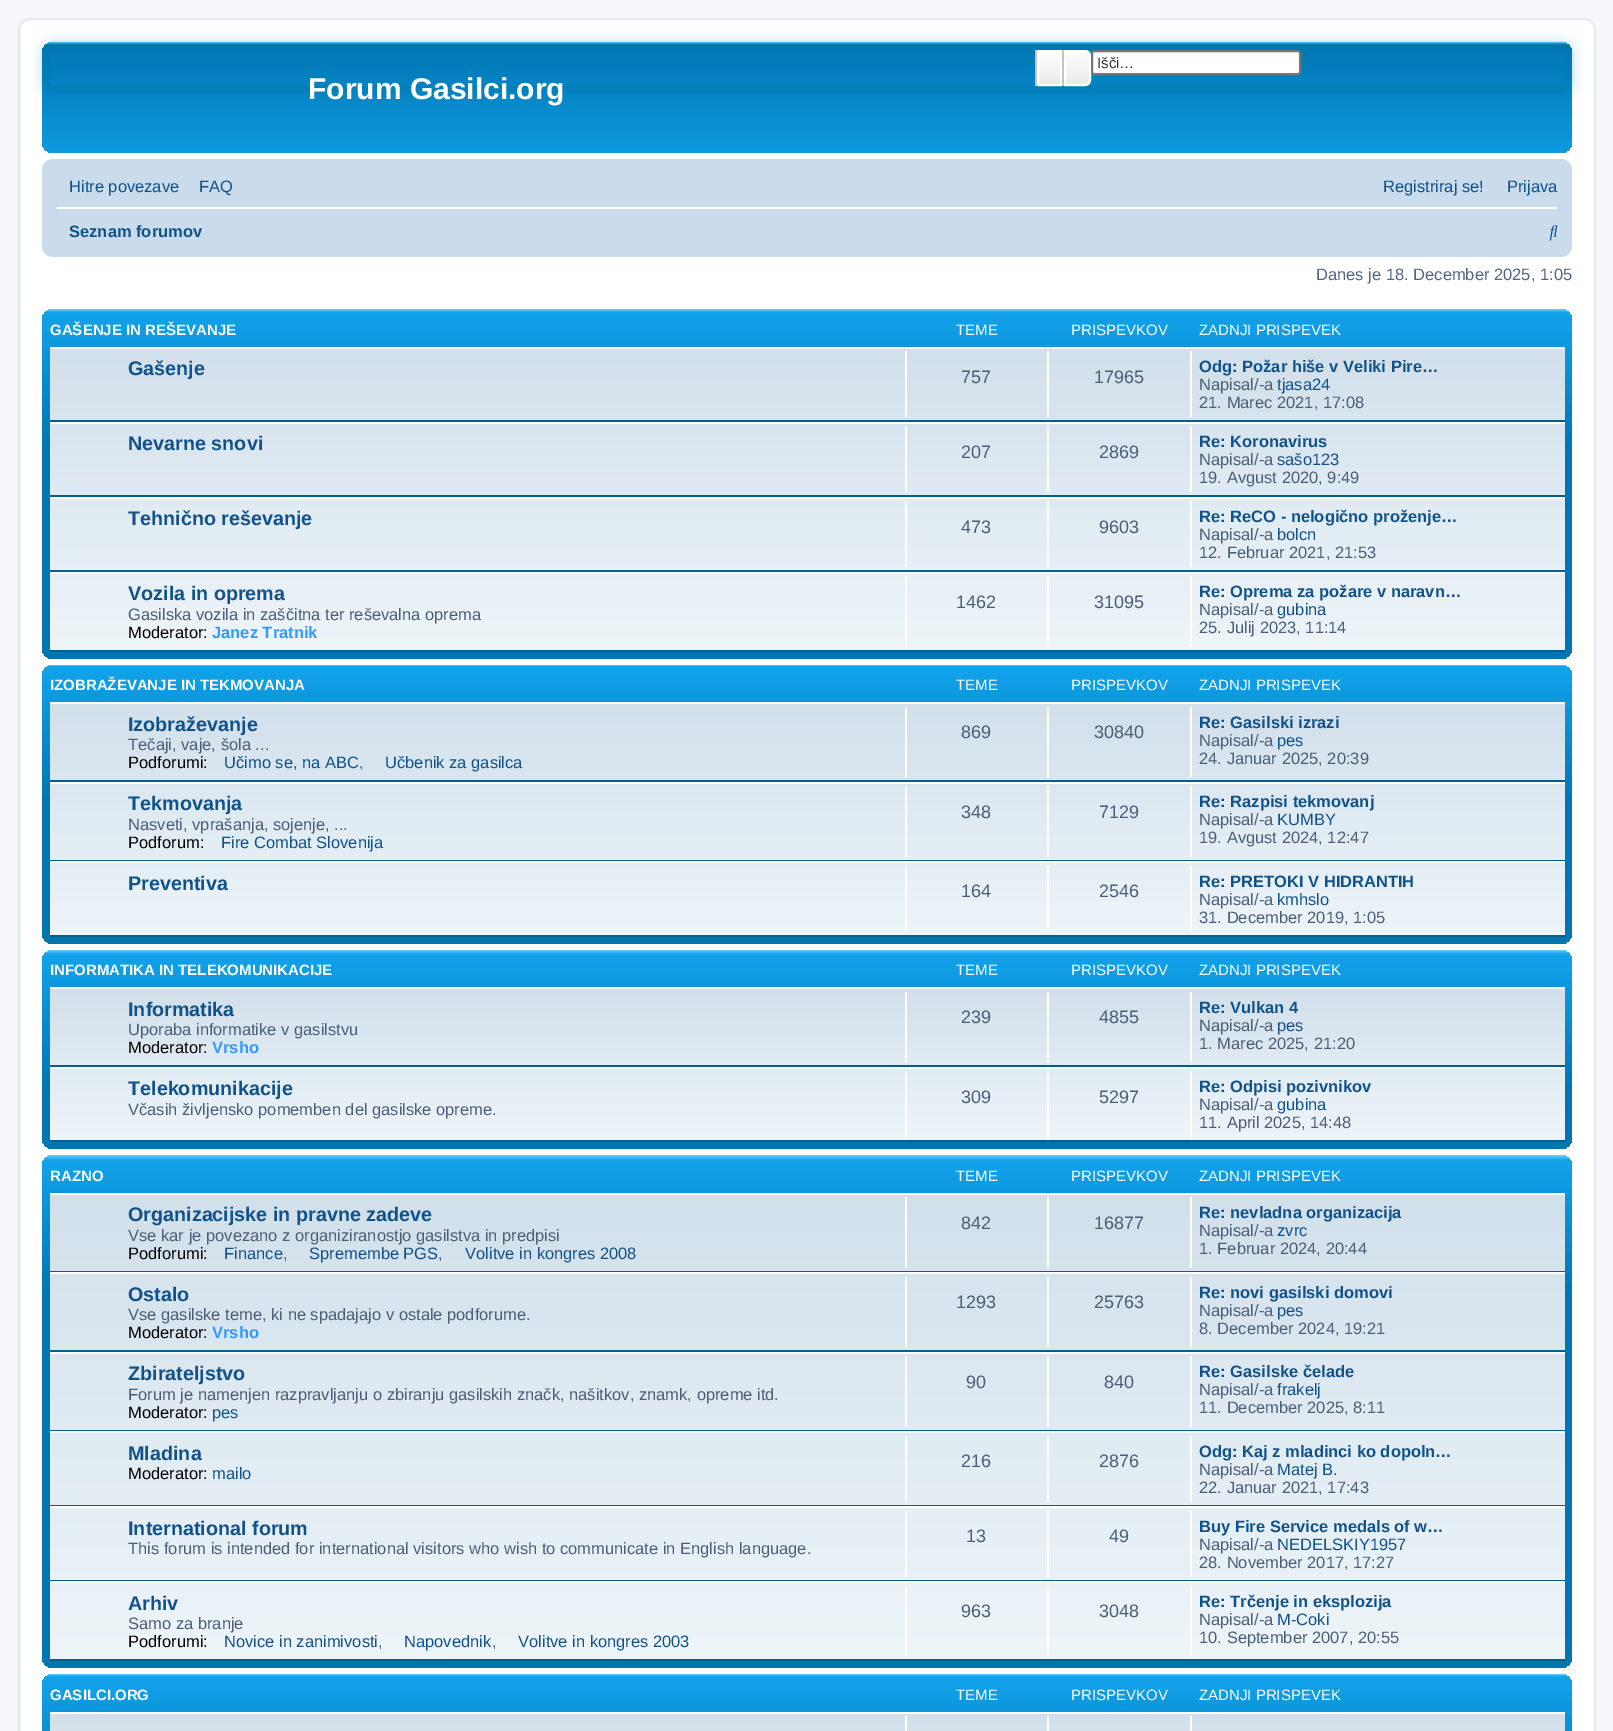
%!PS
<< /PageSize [1613 1731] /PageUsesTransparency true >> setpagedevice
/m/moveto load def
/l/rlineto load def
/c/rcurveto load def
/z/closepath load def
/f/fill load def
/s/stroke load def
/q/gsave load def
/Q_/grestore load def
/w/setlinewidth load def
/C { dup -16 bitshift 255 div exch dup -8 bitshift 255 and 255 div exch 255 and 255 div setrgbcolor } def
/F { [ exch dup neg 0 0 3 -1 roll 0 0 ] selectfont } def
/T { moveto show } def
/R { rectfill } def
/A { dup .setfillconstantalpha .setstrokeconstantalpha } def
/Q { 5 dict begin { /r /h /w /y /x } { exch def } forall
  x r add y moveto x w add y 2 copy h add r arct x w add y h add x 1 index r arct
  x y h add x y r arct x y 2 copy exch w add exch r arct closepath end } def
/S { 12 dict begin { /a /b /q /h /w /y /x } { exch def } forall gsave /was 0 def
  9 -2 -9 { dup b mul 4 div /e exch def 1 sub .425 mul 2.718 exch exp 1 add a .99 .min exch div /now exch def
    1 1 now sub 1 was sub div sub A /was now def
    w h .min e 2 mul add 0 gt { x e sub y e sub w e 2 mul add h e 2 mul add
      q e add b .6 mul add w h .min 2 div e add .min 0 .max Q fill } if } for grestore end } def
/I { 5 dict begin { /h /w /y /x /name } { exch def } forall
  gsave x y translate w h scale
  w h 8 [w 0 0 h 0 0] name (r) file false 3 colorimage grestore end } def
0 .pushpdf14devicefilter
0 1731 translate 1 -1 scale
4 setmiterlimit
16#F5F7FA C
0 0 1613 1731 R
16#FFFFFF C
19 19 1576 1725 11 Q q f Q_
16#E6E9ED C
2 w
s
q 42 42 1530 111 11 Q clip newpath
<< /ShadingType 2 /ColorSpace /DeviceRGB /Coords [807 42 807 180] /Extend [true true] /Function << /FunctionType 3 /Domain [0 1] /Functions [<< /FunctionType 2 /Domain [0 1] /C0 [.416 .808 1] /C1 [0 .463 .694] /N 1 >> << /FunctionType 2 /Domain [0 1] /C0 [0 .463 .694] /C1 [.071 .639 .922] /N 1 >>] /Bounds [.02] /Encode [0 1 0 1] >> >> shfill Q_
q
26 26 m 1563 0 l 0 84 l -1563 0 l z 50 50 m 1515 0 l 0 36 l -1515 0 l z eoclip newpath
16#0075B0 C
50 50 1515 36 0 7.5 1 S
Q_
q 1039 52 m 21 0 l 0 32 l -21 0 l z clip newpath
<< /ShadingType 2 /ColorSpace /DeviceRGB /Coords [1049 50 1049 86] /Extend [true true] /Function << /FunctionType 2 /Domain [0 1] /C0 [1 1 1] /C1 [.914 .914 .914] /N 1 >> >> shfill Q_
16#FFFFFF C
1038 51 23 34 rectstroke
16#C7C3BF C
1062 50 2 36 R
1035 50 2 36 R
q 1065 51 m 20 0 l 3 0 5 2 5 5 c 0 24 l 0 3 -2 5 -5 5 c -20 0 l z clip newpath
<< /ShadingType 2 /ColorSpace /DeviceRGB /Coords [1077 50 1077 86] /Extend [true true] /Function << /FunctionType 2 /Domain [0 1] /C0 [1 1 1] /C1 [.914 .914 .914] /N 1 >> >> shfill Q_
16#FFFFFF C
1065 51 m 20 0 l 3 0 5 2 5 5 c 0 24 l 0 3 -2 5 -5 5 c -20 0 l z s
1092 51 208 23 2 Q q f Q_
16#767676 C
s
/LiberationSans-Regular 15 F
16#333333 C
(Išči…) 1097 68 T
/LiberationSans-Bold 30 F
16#FFFFFF C
(Forum Gasilci.org) 308 99 T
16#CADCEB C
42 159 1530 98 11 Q f
/LiberationSans-Regular 16.5 F
16#105289 C
(Hitre povezave) 69 192 T
(FAQ) 199 192 T
(Registriraj se!) 1383 192 T
(Prijava) 1507 192 T
16#FFFFFF C
57 207 1500 2 R
/LiberationSans-Bold 16.5 F
16#105289 C
(Seznam forumov) 69 237 T
(1.rgb) 1549 225 9 16 I
/LiberationSans-Regular 16.5 F
16#536482 C
(Danes je 18. December 2025, 1:05) 1316 280 T
q 42 309 1530 350 11 Q clip newpath
<< /ShadingType 2 /ColorSpace /DeviceRGB /Coords [807 309 807 659] /Extend [true true] /Function << /FunctionType 3 /Domain [0 1] /Functions [<< /FunctionType 2 /Domain [0 1] /C0 [.416 .808 1] /C1 [.071 .639 .922] /N 1 >> << /FunctionType 2 /Domain [0 1] /C0 [.071 .639 .922] /C1 [0 .463 .694] /N 1 >> << /FunctionType 2 /Domain [0 1] /C0 [0 .463 .694] /C1 [0 .463 .694] /N 1 >>] /Bounds [.01 .39] /Encode [0 1 0 1 0 1] >> >> shfill Q_
/LiberationSans-Bold 15 F
16#FFFFFF C
(GAŠENJE IN REŠEVANJE) 50 335 T
/LiberationSans-Regular 15 F
(TEME) 956 335 T
(PRISPEVKOV) 1071 335 T
(ZADNJI PRISPEVEK) 1199 335 T
q 50 349 m 1515 0 l 0 301 l -1515 0 l z clip newpath
<< /ShadingType 2 /ColorSpace /DeviceRGB /Coords [807 346 807 651] /Extend [true true] /Function << /FunctionType 2 /Domain [0 1] /C0 [.824 .878 .922] /C1 [.933 .961 .976] /N 1 >> >> shfill Q_
50 347 1515 2 R
16#00608F C
50 420 1515 2 R
/LiberationSans-Bold 19.75 F
16#105289 C
(Gašenje) 128 375 T
16#FFFFFF C
905 351 2 66 R
/LiberationSans-Regular 18 F
16#4C5D77 C
(757) 961 383 T
16#FFFFFF C
1047 351 2 66 R
16#4C5D77 C
(17965) 1094 383 T
16#FFFFFF C
1190 351 2 66 R
/LiberationSans-Bold 16.5 F
16#105289 C
(Odg: Požar hiše v Veliki Pire…) 1199 372 T
/LiberationSans-Regular 16.5 F
16#4C5D77 C
(Napisal/-a) 1199 390 T
16#105289 C
(tjasa24) 1277 390 T
16#4C5D77 C
(21. Marec 2021, 17:08) 1199 408 T
16#FFFFFF C
50 422 1515 2 R
16#00608F C
50 495 1515 2 R
/LiberationSans-Bold 19.75 F
16#105289 C
(Nevarne snovi) 128 450 T
16#FFFFFF C
905 426 2 66 R
/LiberationSans-Regular 18 F
16#4C5D77 C
(207) 961 458 T
16#FFFFFF C
1047 426 2 66 R
16#4C5D77 C
(2869) 1099 458 T
16#FFFFFF C
1190 426 2 66 R
/LiberationSans-Bold 16.5 F
16#105289 C
(Re: Koronavirus) 1199 447 T
/LiberationSans-Regular 16.5 F
16#4C5D77 C
(Napisal/-a) 1199 465 T
16#105289 C
(sašo123) 1277 465 T
16#4C5D77 C
(19. Avgust 2020, 9:49) 1199 483 T
16#FFFFFF C
50 497 1515 2 R
16#00608F C
50 570 1515 2 R
/LiberationSans-Bold 19.75 F
16#105289 C
(Tehnično reševanje) 128 525 T
16#FFFFFF C
905 501 2 66 R
/LiberationSans-Regular 18 F
16#4C5D77 C
(473) 961 533 T
16#FFFFFF C
1047 501 2 66 R
16#4C5D77 C
(9603) 1099 533 T
16#FFFFFF C
1190 501 2 66 R
/LiberationSans-Bold 16.5 F
16#105289 C
(Re: ReCO - nelogično proženje…) 1199 522 T
/LiberationSans-Regular 16.5 F
16#4C5D77 C
(Napisal/-a) 1199 540 T
16#105289 C
(bolcn) 1277 540 T
16#4C5D77 C
(12. Februar 2021, 21:53) 1199 558 T
16#FFFFFF C
50 572 1515 2 R
16#00608F C
50 650 1515 2 R
/LiberationSans-Bold 19.75 F
16#105289 C
(Vozila in oprema) 128 600 T
/LiberationSans-Regular 16.5 F
16#4C5D77 C
(Gasilska vozila in zaščitna ter reševalna oprema) 128 620 T
16#000000 C
(Moderator:) 128 638 T
/LiberationSans-Bold 16.5 F
16#3399FF C
(Janez Tratnik) 212 638 T
16#FFFFFF C
905 576 2 71 R
/LiberationSans-Regular 18 F
16#4C5D77 C
(1462) 956 608 T
16#FFFFFF C
1047 576 2 71 R
16#4C5D77 C
(31095) 1094 608 T
16#FFFFFF C
1190 576 2 71 R
/LiberationSans-Bold 16.5 F
16#105289 C
(Re: Oprema za požare v naravn…) 1199 597 T
/LiberationSans-Regular 16.5 F
16#4C5D77 C
(Napisal/-a) 1199 615 T
16#105289 C
(gubina) 1277 615 T
16#4C5D77 C
(25. Julij 2023, 11:14) 1199 633 T
q 42 665 1530 279 11 Q clip newpath
<< /ShadingType 2 /ColorSpace /DeviceRGB /Coords [807 664 807 944] /Extend [true true] /Function << /FunctionType 3 /Domain [0 1] /Functions [<< /FunctionType 2 /Domain [0 1] /C0 [.416 .808 1] /C1 [.071 .639 .922] /N 1 >> << /FunctionType 2 /Domain [0 1] /C0 [.071 .639 .922] /C1 [0 .463 .694] /N 1 >> << /FunctionType 2 /Domain [0 1] /C0 [0 .463 .694] /C1 [0 .463 .694] /N 1 >>] /Bounds [.01 .49] /Encode [0 1 0 1 0 1] >> >> shfill Q_
/LiberationSans-Bold 15 F
16#FFFFFF C
(IZOBRAŽEVANJE IN TEKMOVANJA) 50 690 T
/LiberationSans-Regular 15 F
(TEME) 956 690 T
(PRISPEVKOV) 1071 690 T
(ZADNJI PRISPEVEK) 1199 690 T
q 50 704 m 1515 0 l 0 231 l -1515 0 l z clip newpath
<< /ShadingType 2 /ColorSpace /DeviceRGB /Coords [807 702 807 936] /Extend [true true] /Function << /FunctionType 2 /Domain [0 1] /C0 [.824 .878 .922] /C1 [.933 .961 .976] /N 1 >> >> shfill Q_
50 702 1515 2 R
16#00608F C
50 780 1515 2 R
/LiberationSans-Bold 19.75 F
16#105289 C
(Izobraževanje) 128 731 T
/LiberationSans-Regular 16.5 F
16#4C5D77 C
(Tečaji, vaje, šola ...) 128 750 T
16#000000 C
(Podforumi:) 128 768 T
16#105289 C
(Učimo se, na ABC) 224 768 T
16#4C5D77 C
(,) 359 768 T
16#105289 C
(Učbenik za gasilca) 385 768 T
16#FFFFFF C
905 707 2 70 R
/LiberationSans-Regular 18 F
16#4C5D77 C
(869) 961 738 T
16#FFFFFF C
1047 707 2 70 R
16#4C5D77 C
(30840) 1094 738 T
16#FFFFFF C
1190 707 2 70 R
/LiberationSans-Bold 16.5 F
16#105289 C
(Re: Gasilski izrazi) 1199 728 T
/LiberationSans-Regular 16.5 F
16#4C5D77 C
(Napisal/-a) 1199 746 T
16#105289 C
(pes) 1277 746 T
16#4C5D77 C
(24. Januar 2025, 20:39) 1199 764 T
16#FFFFFF C
50 782 1515 2 R
16#00608F C
50 860 1515 1 R
/LiberationSans-Bold 19.75 F
16#105289 C
(Tekmovanja) 128 810 T
/LiberationSans-Regular 16.5 F
16#4C5D77 C
(Nasveti, vprašanja, sojenje, ...) 128 830 T
16#000000 C
(Podforum:) 128 848 T
16#105289 C
(Fire Combat Slovenija) 221 848 T
16#FFFFFF C
905 786 2 71 R
/LiberationSans-Regular 18 F
16#4C5D77 C
(348) 961 818 T
16#FFFFFF C
1047 786 2 71 R
16#4C5D77 C
(7129) 1099 818 T
16#FFFFFF C
1190 786 2 71 R
/LiberationSans-Bold 16.5 F
16#105289 C
(Re: Razpisi tekmovanj) 1199 807 T
/LiberationSans-Regular 16.5 F
16#4C5D77 C
(Napisal/-a) 1199 825 T
16#105289 C
(KUMBY) 1277 825 T
16#4C5D77 C
(19. Avgust 2024, 12:47) 1199 843 T
16#FFFFFF C
50 861 1515 2 R
16#00608F C
50 935 1515 2 R
/LiberationSans-Bold 19.75 F
16#105289 C
(Preventiva) 128 890 T
16#FFFFFF C
905 866 2 66 R
/LiberationSans-Regular 18 F
16#4C5D77 C
(164) 961 897 T
16#FFFFFF C
1047 866 2 66 R
16#4C5D77 C
(2546) 1099 897 T
16#FFFFFF C
1190 866 2 66 R
/LiberationSans-Bold 16.5 F
16#105289 C
(Re: PRETOKI V HIDRANTIH) 1199 887 T
/LiberationSans-Regular 16.5 F
16#4C5D77 C
(Napisal/-a) 1199 905 T
16#105289 C
(kmhslo) 1277 905 T
16#4C5D77 C
(31. December 2019, 1:05) 1199 923 T
q 42 950 1530 199 11 Q clip newpath
<< /ShadingType 2 /ColorSpace /DeviceRGB /Coords [807 950 807 1149] /Extend [true true] /Function << /FunctionType 3 /Domain [0 1] /Functions [<< /FunctionType 2 /Domain [0 1] /C0 [.416 .808 1] /C1 [.071 .639 .922] /N 1 >> << /FunctionType 2 /Domain [0 1] /C0 [.071 .639 .922] /C1 [0 .463 .694] /N 1 >> << /FunctionType 2 /Domain [0 1] /C0 [0 .463 .694] /C1 [0 .463 .694] /N 1 >>] /Bounds [.02 .69] /Encode [0 1 0 1 0 1] >> >> shfill Q_
/LiberationSans-Bold 15 F
16#FFFFFF C
(INFORMATIKA IN TELEKOMUNIKACIJE) 50 975 T
/LiberationSans-Regular 15 F
(TEME) 956 975 T
(PRISPEVKOV) 1071 975 T
(ZADNJI PRISPEVEK) 1199 975 T
q 50 989 m 1515 0 l 0 151 l -1515 0 l z clip newpath
<< /ShadingType 2 /ColorSpace /DeviceRGB /Coords [807 987 807 1142] /Extend [true true] /Function << /FunctionType 2 /Domain [0 1] /C0 [.824 .878 .922] /C1 [.933 .961 .976] /N 1 >> >> shfill Q_
50 987 1515 2 R
16#00608F C
50 1065 1515 2 R
/LiberationSans-Bold 19.75 F
16#105289 C
(Informatika) 128 1016 T
/LiberationSans-Regular 16.5 F
16#4C5D77 C
(Uporaba informatike v gasilstvu) 128 1035 T
16#000000 C
(Moderator:) 128 1053 T
/LiberationSans-Bold 16.5 F
16#3399FF C
(Vrsho) 212 1053 T
16#FFFFFF C
905 992 2 70 R
/LiberationSans-Regular 18 F
16#4C5D77 C
(239) 961 1023 T
16#FFFFFF C
1047 992 2 70 R
16#4C5D77 C
(4855) 1099 1023 T
16#FFFFFF C
1190 992 2 70 R
/LiberationSans-Bold 16.5 F
16#105289 C
(Re: Vulkan 4) 1199 1013 T
/LiberationSans-Regular 16.5 F
16#4C5D77 C
(Napisal/-a) 1199 1031 T
16#105289 C
(pes) 1277 1031 T
16#4C5D77 C
(1. Marec 2025, 21:20) 1199 1049 T
16#FFFFFF C
50 1067 1515 2 R
16#00608F C
50 1140 1515 2 R
/LiberationSans-Bold 19.75 F
16#105289 C
(Telekomunikacije) 128 1095 T
/LiberationSans-Regular 16.5 F
16#4C5D77 C
(Včasih življensko pomemben del gasilske opreme.) 128 1115 T
16#FFFFFF C
905 1071 2 66 R
/LiberationSans-Regular 18 F
16#4C5D77 C
(309) 961 1103 T
16#FFFFFF C
1047 1071 2 66 R
16#4C5D77 C
(5297) 1099 1103 T
16#FFFFFF C
1190 1071 2 66 R
/LiberationSans-Bold 16.5 F
16#105289 C
(Re: Odpisi pozivnikov) 1199 1092 T
/LiberationSans-Regular 16.5 F
16#4C5D77 C
(Napisal/-a) 1199 1110 T
16#105289 C
(gubina) 1277 1110 T
16#4C5D77 C
(11. April 2025, 14:48) 1199 1128 T
q 42 1155 1530 513 11 Q clip newpath
<< /ShadingType 2 /ColorSpace /DeviceRGB /Coords [807 1155 807 1668] /Extend [true true] /Function << /FunctionType 3 /Domain [0 1] /Functions [<< /FunctionType 2 /Domain [0 1] /C0 [.416 .808 1] /C1 [.071 .639 .922] /N 1 >> << /FunctionType 2 /Domain [0 1] /C0 [.071 .639 .922] /C1 [0 .463 .694] /N 1 >> << /FunctionType 2 /Domain [0 1] /C0 [0 .463 .694] /C1 [0 .463 .694] /N 1 >>] /Bounds [.01 .27] /Encode [0 1 0 1 0 1] >> >> shfill Q_
/LiberationSans-Bold 15 F
16#FFFFFF C
(RAZNO) 50 1181 T
/LiberationSans-Regular 15 F
(TEME) 956 1181 T
(PRISPEVKOV) 1071 1181 T
(ZADNJI PRISPEVEK) 1199 1181 T
q 50 1195 m 1515 0 l 0 464 l -1515 0 l z clip newpath
<< /ShadingType 2 /ColorSpace /DeviceRGB /Coords [807 1193 807 1661] /Extend [true true] /Function << /FunctionType 2 /Domain [0 1] /C0 [.824 .878 .922] /C1 [.933 .961 .976] /N 1 >> >> shfill Q_
50 1193 1515 2 R
16#00608F C
50 1271 1515 1 R
/LiberationSans-Bold 19.75 F
16#105289 C
(Organizacijske in pravne zadeve) 128 1221 T
/LiberationSans-Regular 16.5 F
16#4C5D77 C
(Vse kar je povezano z organiziranostjo gasilstva in predpisi) 128 1241 T
16#000000 C
(Podforumi:) 128 1259 T
16#105289 C
(Finance) 224 1259 T
16#4C5D77 C
(,) 283 1259 T
16#105289 C
(Spremembe PGS) 309 1259 T
16#4C5D77 C
(,) 438 1259 T
16#105289 C
(Volitve in kongres 2008) 465 1259 T
16#FFFFFF C
905 1197 2 71 R
/LiberationSans-Regular 18 F
16#4C5D77 C
(842) 961 1229 T
16#FFFFFF C
1047 1197 2 71 R
16#4C5D77 C
(16877) 1094 1229 T
16#FFFFFF C
1190 1197 2 71 R
/LiberationSans-Bold 16.5 F
16#105289 C
(Re: nevladna organizacija) 1199 1218 T
/LiberationSans-Regular 16.5 F
16#4C5D77 C
(Napisal/-a) 1199 1236 T
16#105289 C
(zvrc) 1277 1236 T
16#4C5D77 C
(1. Februar 2024, 20:44) 1199 1254 T
16#FFFFFF C
50 1272 1515 2 R
16#00608F C
50 1350 1515 2 R
/LiberationSans-Bold 19.75 F
16#105289 C
(Ostalo) 128 1301 T
/LiberationSans-Regular 16.5 F
16#4C5D77 C
(Vse gasilske teme, ki ne spadajajo v ostale podforume.) 128 1320 T
16#000000 C
(Moderator:) 128 1338 T
/LiberationSans-Bold 16.5 F
16#3399FF C
(Vrsho) 212 1338 T
16#FFFFFF C
905 1277 2 70 R
/LiberationSans-Regular 18 F
16#4C5D77 C
(1293) 956 1308 T
16#FFFFFF C
1047 1277 2 70 R
16#4C5D77 C
(25763) 1094 1308 T
16#FFFFFF C
1190 1277 2 70 R
/LiberationSans-Bold 16.5 F
16#105289 C
(Re: novi gasilski domovi) 1199 1298 T
/LiberationSans-Regular 16.5 F
16#4C5D77 C
(Napisal/-a) 1199 1316 T
16#105289 C
(pes) 1277 1316 T
16#4C5D77 C
(8. December 2024, 19:21) 1199 1334 T
16#FFFFFF C
50 1352 1515 2 R
16#00608F C
50 1430 1515 1 R
/LiberationSans-Bold 19.75 F
16#105289 C
(Zbirateljstvo) 128 1380 T
/LiberationSans-Regular 16.5 F
16#4C5D77 C
(Forum je namenjen razpravljanju o zbiranju gasilskih značk, našitkov, znamk, opreme itd.) 128 1400 T
16#000000 C
(Moderator:) 128 1418 T
16#105289 C
(pes) 212 1418 T
16#FFFFFF C
905 1356 2 71 R
/LiberationSans-Regular 18 F
16#4C5D77 C
(90) 966 1388 T
16#FFFFFF C
1047 1356 2 71 R
16#4C5D77 C
(840) 1104 1388 T
16#FFFFFF C
1190 1356 2 71 R
/LiberationSans-Bold 16.5 F
16#105289 C
(Re: Gasilske čelade) 1199 1377 T
/LiberationSans-Regular 16.5 F
16#4C5D77 C
(Napisal/-a) 1199 1395 T
16#105289 C
(frakelj) 1277 1395 T
16#4C5D77 C
(11. December 2025, 8:11) 1199 1413 T
16#FFFFFF C
50 1431 1515 2 R
16#00608F C
50 1505 1515 1 R
/LiberationSans-Bold 19.75 F
16#105289 C
(Mladina) 128 1460 T
/LiberationSans-Regular 16.5 F
16#000000 C
(Moderator:) 128 1479 T
16#105289 C
(mailo) 212 1479 T
16#FFFFFF C
905 1436 2 66 R
/LiberationSans-Regular 18 F
16#4C5D77 C
(216) 961 1467 T
16#FFFFFF C
1047 1436 2 66 R
16#4C5D77 C
(2876) 1099 1467 T
16#FFFFFF C
1190 1436 2 66 R
/LiberationSans-Bold 16.5 F
16#105289 C
(Odg: Kaj z mladinci ko dopoln…) 1199 1457 T
/LiberationSans-Regular 16.5 F
16#4C5D77 C
(Napisal/-a) 1199 1475 T
16#105289 C
(Matej B.) 1277 1475 T
16#4C5D77 C
(22. Januar 2021, 17:43) 1199 1493 T
16#FFFFFF C
50 1506 1515 2 R
16#00608F C
50 1580 1515 1 R
/LiberationSans-Bold 19.75 F
16#105289 C
(International forum) 128 1535 T
/LiberationSans-Regular 16.5 F
16#4C5D77 C
(This forum is intended for international visitors who wish to communicate in English language.) 128 1554 T
16#FFFFFF C
905 1511 2 66 R
/LiberationSans-Regular 18 F
16#4C5D77 C
(13) 966 1542 T
16#FFFFFF C
1047 1511 2 66 R
16#4C5D77 C
(49) 1109 1542 T
16#FFFFFF C
1190 1511 2 66 R
/LiberationSans-Bold 16.5 F
16#105289 C
(Buy Fire Service medals of w…) 1199 1532 T
/LiberationSans-Regular 16.5 F
16#4C5D77 C
(Napisal/-a) 1199 1550 T
16#105289 C
(NEDELSKIY1957) 1277 1550 T
16#4C5D77 C
(28. November 2017, 17:27) 1199 1568 T
16#FFFFFF C
50 1581 1515 2 R
16#00608F C
50 1659 1515 2 R
/LiberationSans-Bold 19.75 F
16#105289 C
(Arhiv) 128 1610 T
/LiberationSans-Regular 16.5 F
16#4C5D77 C
(Samo za branje) 128 1629 T
16#000000 C
(Podforumi:) 128 1647 T
16#105289 C
(Novice in zanimivosti) 224 1647 T
16#4C5D77 C
(,) 378 1647 T
16#105289 C
(Napovednik) 404 1647 T
16#4C5D77 C
(,) 492 1647 T
16#105289 C
(Volitve in kongres 2003) 518 1647 T
16#FFFFFF C
905 1586 2 70 R
/LiberationSans-Regular 18 F
16#4C5D77 C
(963) 961 1617 T
16#FFFFFF C
1047 1586 2 70 R
16#4C5D77 C
(3048) 1099 1617 T
16#FFFFFF C
1190 1586 2 70 R
/LiberationSans-Bold 16.5 F
16#105289 C
(Re: Trčenje in eksplozija) 1199 1607 T
/LiberationSans-Regular 16.5 F
16#4C5D77 C
(Napisal/-a) 1199 1625 T
16#105289 C
(M-Coki) 1277 1625 T
16#4C5D77 C
(10. September 2007, 20:55) 1199 1643 T
q 42 1674 1530 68 11 Q clip newpath
<< /ShadingType 2 /ColorSpace /DeviceRGB /Coords [807 1674 807 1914] /Extend [true true] /Function << /FunctionType 3 /Domain [0 1] /Functions [<< /FunctionType 2 /Domain [0 1] /C0 [.416 .808 1] /C1 [.071 .639 .922] /N 1 >> << /FunctionType 2 /Domain [0 1] /C0 [.071 .639 .922] /C1 [0 .463 .694] /N 1 >> << /FunctionType 2 /Domain [0 1] /C0 [0 .463 .694] /C1 [0 .463 .694] /N 1 >>] /Bounds [.01 .57] /Encode [0 1 0 1 0 1] >> >> shfill Q_
/LiberationSans-Bold 15 F
16#FFFFFF C
(GASILCI.ORG) 50 1700 T
/LiberationSans-Regular 15 F
(TEME) 956 1700 T
(PRISPEVKOV) 1071 1700 T
(ZADNJI PRISPEVEK) 1199 1700 T
q 50 1714 m 1515 0 l 0 17 l -1515 0 l z clip newpath
<< /ShadingType 2 /ColorSpace /DeviceRGB /Coords [807 1712 807 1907] /Extend [true true] /Function << /FunctionType 2 /Domain [0 1] /C0 [.824 .878 .922] /C1 [.933 .961 .976] /N 1 >> >> shfill Q_
50 1712 1515 2 R
905 1716 2 15 R
1047 1716 2 15 R
1190 1716 2 15 R
.poppdf14devicefilter showpage
